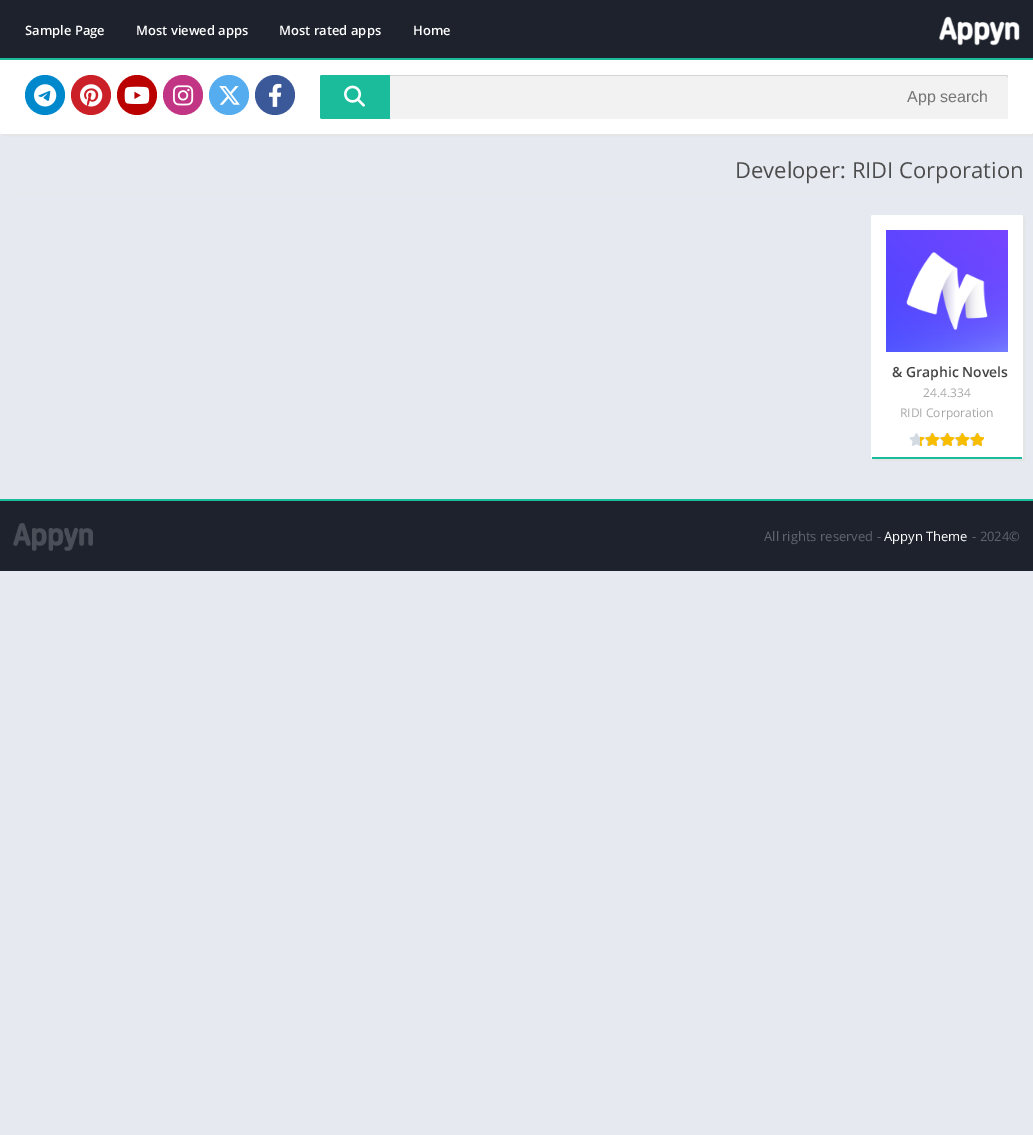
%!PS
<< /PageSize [1033 1135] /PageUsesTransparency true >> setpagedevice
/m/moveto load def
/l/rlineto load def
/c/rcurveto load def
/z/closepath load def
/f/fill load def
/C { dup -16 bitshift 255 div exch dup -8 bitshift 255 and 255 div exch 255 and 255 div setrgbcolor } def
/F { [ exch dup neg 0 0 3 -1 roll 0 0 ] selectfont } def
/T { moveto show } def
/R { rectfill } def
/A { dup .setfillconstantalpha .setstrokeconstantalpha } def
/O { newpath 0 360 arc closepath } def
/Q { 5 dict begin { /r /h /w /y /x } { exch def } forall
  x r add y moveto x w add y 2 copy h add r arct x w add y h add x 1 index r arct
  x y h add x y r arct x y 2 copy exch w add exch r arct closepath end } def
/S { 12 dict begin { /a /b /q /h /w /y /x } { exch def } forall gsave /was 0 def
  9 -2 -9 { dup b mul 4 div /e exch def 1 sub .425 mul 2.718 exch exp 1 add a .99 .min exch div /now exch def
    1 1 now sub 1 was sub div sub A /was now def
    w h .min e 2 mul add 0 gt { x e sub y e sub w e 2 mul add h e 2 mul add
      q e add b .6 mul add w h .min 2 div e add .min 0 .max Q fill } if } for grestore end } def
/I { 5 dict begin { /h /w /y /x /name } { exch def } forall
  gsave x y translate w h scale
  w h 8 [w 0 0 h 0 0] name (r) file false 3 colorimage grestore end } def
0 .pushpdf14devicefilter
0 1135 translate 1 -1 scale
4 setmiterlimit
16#E6E9EF C
0 0 1033 1135 R
16#E3E3E3 C
2 2 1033 134 2 1 1 S
16#FFFFFF C
0 0 1033 134 2 Q f
16#1D222D C
0 0 1033 58 R
16#1BBC9B C
0 58 1033 2 R
/OpenSans-SemiBold 13 F
16#FFFFFF C
(Sample Page) 25 35 T
(Most viewed apps) 136 35 T
(Most rated apps) 279 35 T
(Home) 413 35 T
(1.rgb) 939 16 81 30 I
16#0088CC C
45 95 20 O f
(2.rgb) 34 84 23 23 I
16#CB2027 C
91 95 20 O f
(3.rgb) 80 84 23 23 I
16#BB0000 C
137 95 20 O f
(4.rgb) 124 86 26 18 I
16#C13584 C
183 95 20 O f
(5.rgb) 173 85 21 21 I
16#55ACEE C
229 95 20 O f
(6.rgb) 219 86 21 19 I
16#3B5998 C
275 95 20 O f
(7.rgb) 269 83 13 24 I
16#F2F2F2 C
320 75 688 44 2 Q f
16#D4D4D4 C
322 76 m 684 0 l 1 0 2 1 2 2 c 0 -1 0 -3 -2 -3 c -684 0 l -2 0 -2 2 -2 3 c 0 -1 1 -2 2 -2 c z f
16#1BBC9B C
322 75 m 68 0 l 0 44 l -68 0 l -1 0 -2 -1 -2 -2 c 0 -40 l 0 -1 1 -2 2 -2 c z f
(8.rgb) 344 85 21 22 I
/LiberationSans-Regular 16 F
16#757575 C
(App search) 907 102 T
16#EAEAEA C
10 194 1013 1 R
/OpenSans-Regular 22 F
16#4C4C4C C
(Developer: RIDI Corporation) 735 178 T
16#E3E3E3 C
873 217 152 244 2 1 1 S
16#FFFFFF C
871 215 152 244 2 Q f
16#1BBC9B C
872 457 150 2 R
(9.rgb) 886 230 122 122 I
/OpenSans-SemiBold 14 F
16#444444 C
(& Graphic Novels) 892 377 T
/OpenSans-Regular 12 F
16#A7A7A7 C
(24.4.334) 923 397 T
(RIDI Corporation) 900 417 T
(10.rgb) 909 433 75 13 I
(11.rgb) 920 433 64 13 I
16#1D222D C
0 501 1033 70 R
16#1BBC9B C
0 499 1033 2 R
(12.rgb) 13 523 80 28 I
/OpenSans-Regular 13 F
16#61646C C
(All rights reserved -) 764 541 T
16#FFFFFF C
(Appyn Theme) 884 541 T
16#61646C C
(- 2024©) 972 541 T
.poppdf14devicefilter showpage
